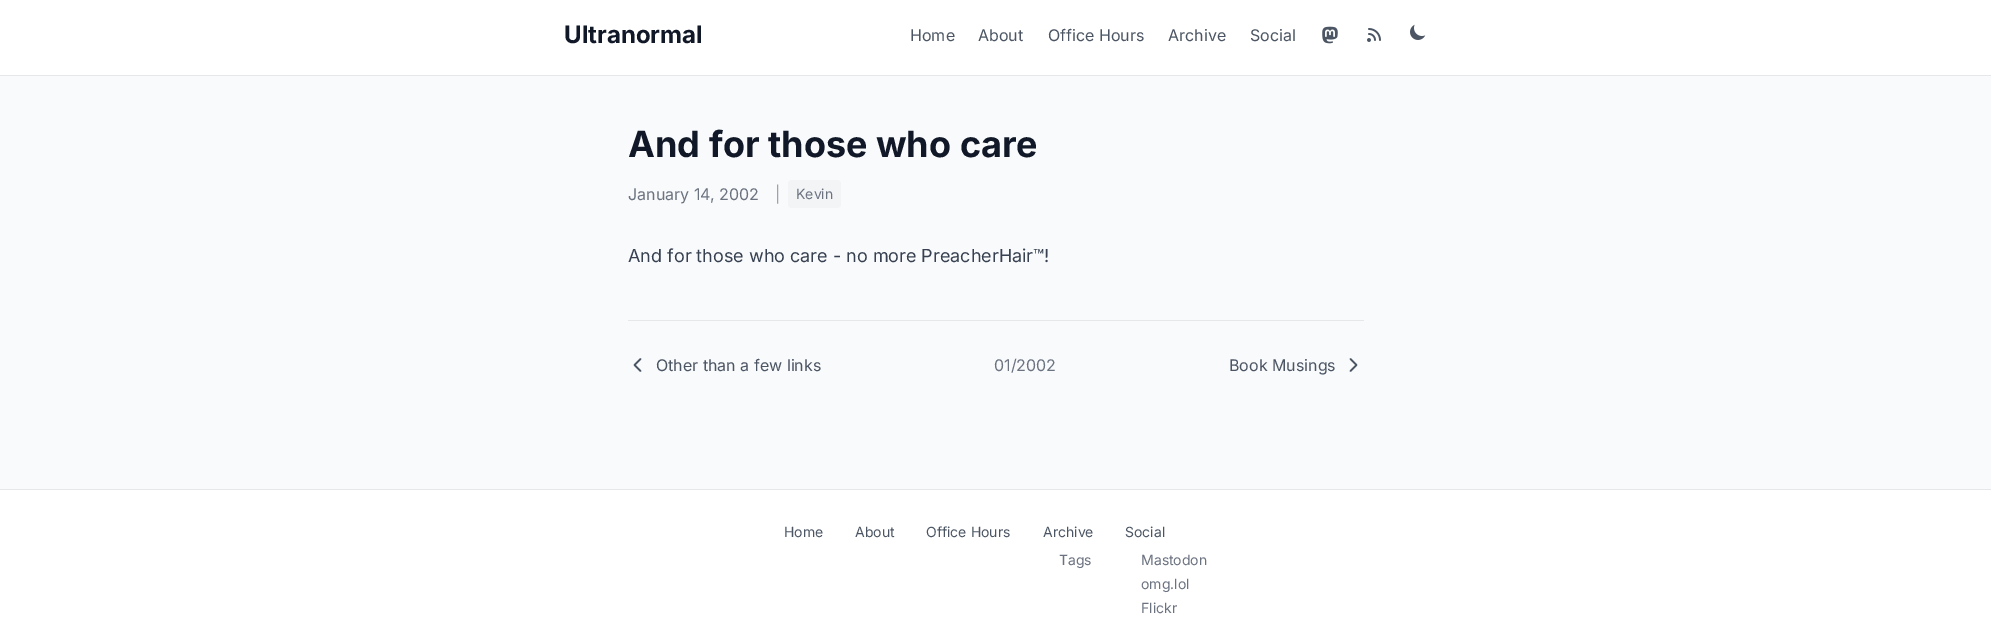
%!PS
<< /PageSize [1991 621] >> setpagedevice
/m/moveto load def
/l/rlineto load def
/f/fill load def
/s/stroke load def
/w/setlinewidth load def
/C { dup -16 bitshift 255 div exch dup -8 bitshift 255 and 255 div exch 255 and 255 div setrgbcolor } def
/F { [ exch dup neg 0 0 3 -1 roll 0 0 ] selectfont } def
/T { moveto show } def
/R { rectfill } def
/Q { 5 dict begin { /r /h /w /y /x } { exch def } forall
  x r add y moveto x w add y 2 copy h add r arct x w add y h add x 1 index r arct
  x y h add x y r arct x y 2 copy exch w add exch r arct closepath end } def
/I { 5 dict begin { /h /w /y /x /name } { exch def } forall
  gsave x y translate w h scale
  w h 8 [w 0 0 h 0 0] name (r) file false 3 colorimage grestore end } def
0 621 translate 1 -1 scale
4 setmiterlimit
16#F9FAFB C
0 0 1991 621 R
16#FFFFFF C
0 0 1991 75 R
16#E5E7EB C
0 75 1991 1 R
/Inter-Bold 24 F
16#111827 C
(Ultranormal) 564 43 T
/Inter-Regular 16 F
16#4B5563 C
(Home) 910 41 T
(About) 978 41 T
(Office Hours) 1048 41 T
(Archive) 1168 41 T
(Social) 1250 41 T
(1.rgb) 1322 26 16 18 I
(2.rgb) 1367 28 14 14 I
(3.rgb) 1410 24 16 16 I
/Inter-Bold 36 F
16#111827 C
(And for those who care) 628 157 T
/Inter-Regular 16 F
16#6B7280 C
(January 14, 2002) 628 200 T
16#9CA3AF C
(|) 775 200 T
16#F3F4F6 C
788 180 53 28 4 Q f
/Inter-Regular 14 F
16#6B7280 C
(Kevin) 796 199 T
/Inter-Regular 18 F
16#374151 C
(And for those who care - no more PreacherHair™!) 628 262 T
16#E5E7EB C
628 320 736 1 R
16#4B5563 C
1.7 w
1 setlinecap
1 setlinejoin
640.5 371 m -6 -6 l 6 -6 l s
/Inter-Regular 16 F
(Other than a few links) 656 371 T
16#6B7280 C
(01/2002) 994 371 T
16#4B5563 C
(Book Musings) 1229 371 T
1350.5 359 m 6 6 l -6 6 l s
16#FFFFFF C
0 490 1991 131 R
16#E5E7EB C
0 489 1991 1 R
/Inter-Regular 14 F
16#4B5563 C
(Home) 784 537 T
(About) 855 537 T
(Office Hours) 926 537 T
(Archive) 1043 537 T
16#6B7280 C
(Tags) 1059 565 T
16#4B5563 C
(Social) 1125 537 T
16#6B7280 C
(Mastodon) 1141 565 T
(omg.lol) 1141 589 T
(Flickr) 1141 613 T
showpage
